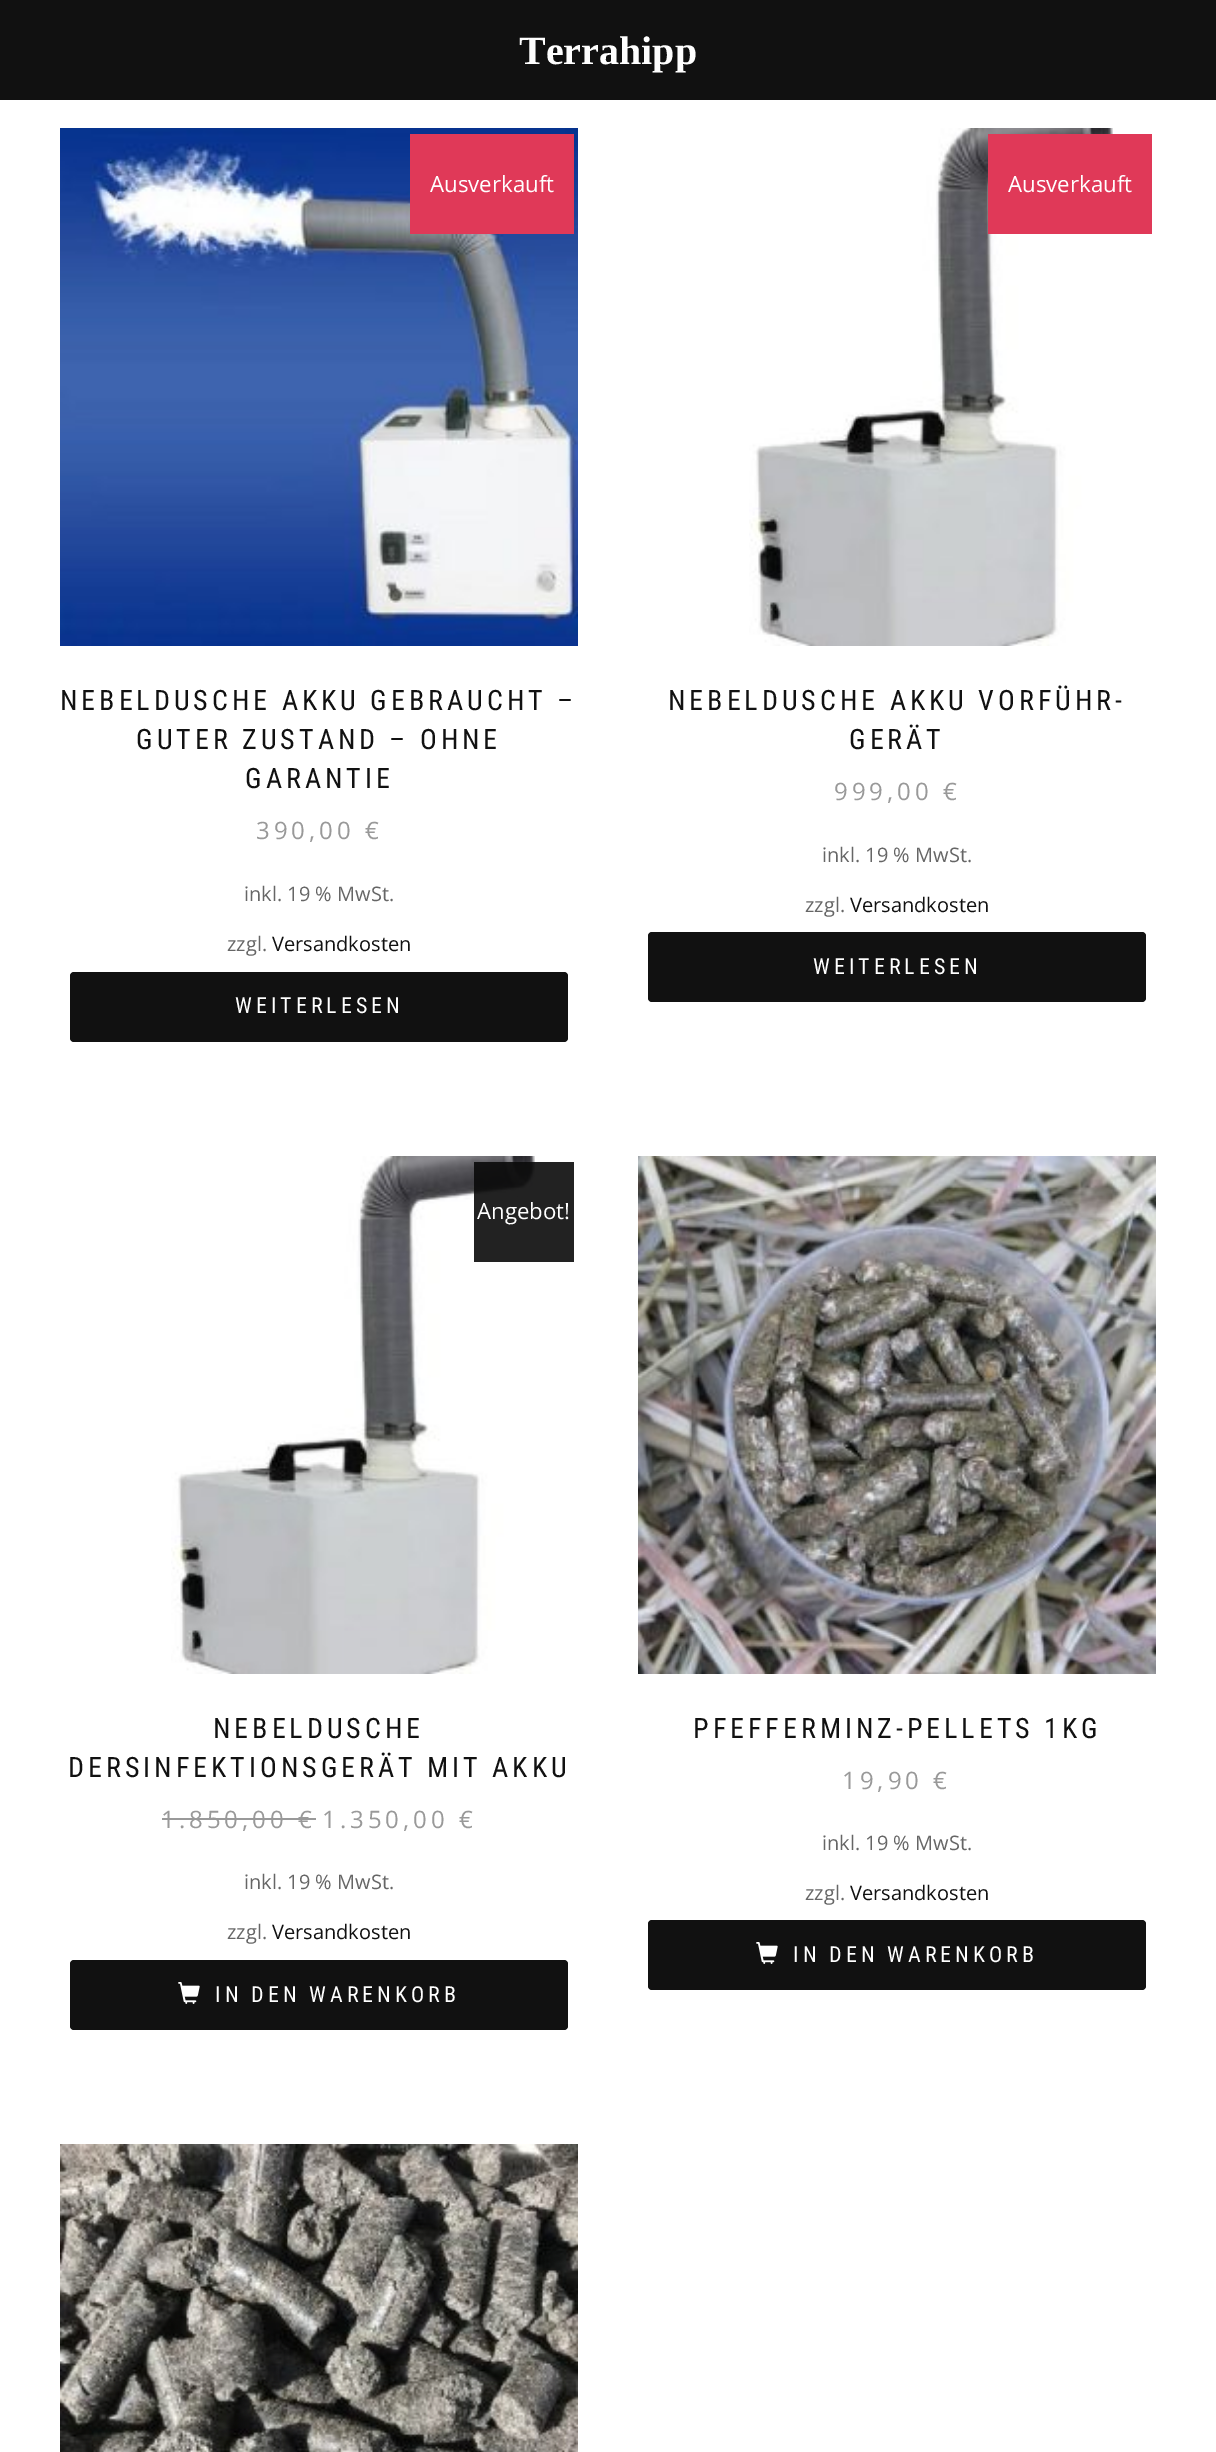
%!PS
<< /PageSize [1216 2452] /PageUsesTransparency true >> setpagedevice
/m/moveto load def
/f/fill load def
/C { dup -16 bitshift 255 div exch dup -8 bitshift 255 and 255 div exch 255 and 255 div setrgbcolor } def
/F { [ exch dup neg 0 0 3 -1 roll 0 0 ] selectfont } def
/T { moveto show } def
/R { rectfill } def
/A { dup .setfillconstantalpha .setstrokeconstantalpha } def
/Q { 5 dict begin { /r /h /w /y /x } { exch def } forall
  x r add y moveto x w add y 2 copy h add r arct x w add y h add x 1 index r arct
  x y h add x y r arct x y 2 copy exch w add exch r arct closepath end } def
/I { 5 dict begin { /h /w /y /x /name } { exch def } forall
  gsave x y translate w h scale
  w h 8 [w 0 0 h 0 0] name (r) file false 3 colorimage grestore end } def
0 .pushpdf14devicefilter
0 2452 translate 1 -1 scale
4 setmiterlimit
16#FFFFFF C
0 0 1216 2452 R
16#111111 C
0 0 1216 100 R
/LiberationSerif-Bold 40 F
16#FFFFFF C
(Terrahipp) 519 64 T
(1.rgb) 60 128 518 518 I
16#E03958 C
410 134 164 100 R
/OpenSans-Regular 22.25 F
16#FFFFFF C
(Ausverkauft) 430 192 T
/RobotoCondensed-Regular 28 F
16#111111 C
60 710 m 4 0 (NEBELDUSCHE AKKU GEBRAUCHT –) ashow
136 749 m 4 0 (GUTER ZUSTAND – OHNE) ashow
245 788 m 4 0 (GARANTIE) ashow
/OpenSans-Regular 24 F
16#999999 C
256 839 m 4 0 (390,00 €) ashow
/OpenSans-Regular 20 F
16#666666 C
(inkl. 19 % MwSt.) 244 901 T
(zzgl.) 227 951 T
16#111111 C
(Versandkosten) 272 951 T
70 972 498 70 4 Q f
/RobotoCondensed-Regular 22 F
16#FFFFFF C
235 1013 m 4 0 (WEITERLESEN) ashow
(2.rgb) 749 128 364 518 I
16#E03958 C
988 134 164 100 R
/OpenSans-Regular 22.25 F
16#FFFFFF C
(Ausverkauft) 1008 192 T
/RobotoCondensed-Regular 28 F
16#111111 C
668 710 m 4 0 (NEBELDUSCHE AKKU VORFÜHR-) ashow
849 749 m 4 0 (GERÄT) ashow
/OpenSans-Regular 24 F
16#999999 C
834 800 m 4 0 (999,00 €) ashow
/OpenSans-Regular 20 F
16#666666 C
(inkl. 19 % MwSt.) 822 862 T
(zzgl.) 805 912 T
16#111111 C
(Versandkosten) 850 912 T
648 932 498 70 4 Q f
/RobotoCondensed-Regular 22 F
16#FFFFFF C
813 974 m 4 0 (WEITERLESEN) ashow
(2.rgb) 171 1156 364 518 I
0.9 A
16#0A0A0A C
474 1162 100 100 R
/OpenSans-Regular 22.25 F
1 A
16#FFFFFF C
(Angebot!) 477 1219 T
/RobotoCondensed-Regular 28 F
16#111111 C
213 1738 m 4 0 (NEBELDUSCHE) ashow
68 1777 m 4 0 (DERSINFEKTIONSGERÄT MIT AKKU) ashow
/OpenSans-Regular 24 F
16#999999 C
161 1828 m 4 0 (1.850,00 €) ashow
162 1818 154 2 R
322 1828 m 4 0 (1.350,00 €) ashow
/OpenSans-Regular 20 F
16#666666 C
(inkl. 19 % MwSt.) 244 1889 T
(zzgl.) 227 1939 T
16#111111 C
(Versandkosten) 272 1939 T
70 1960 498 70 4 Q f
(3.rgb) 178 1982 22 22 I
/RobotoCondensed-Regular 22 F
16#FFFFFF C
215 2002 m 4 0 (IN DEN WARENKORB) ashow
(4.rgb) 638 1156 518 518 I
/RobotoCondensed-Regular 28 F
16#111111 C
693 1738 m 4 0 (PFEFFERMINZ-PELLETS 1KG) ashow
/OpenSans-Regular 24 F
16#999999 C
842 1789 m 4 0 (19,90 €) ashow
/OpenSans-Regular 20 F
16#666666 C
(inkl. 19 % MwSt.) 822 1850 T
(zzgl.) 805 1900 T
16#111111 C
(Versandkosten) 850 1900 T
648 1920 498 70 4 Q f
(3.rgb) 756 1942 22 22 I
/RobotoCondensed-Regular 22 F
16#FFFFFF C
793 1962 m 4 0 (IN DEN WARENKORB) ashow
(5.rgb) 60 2144 518 308 I
.poppdf14devicefilter showpage
